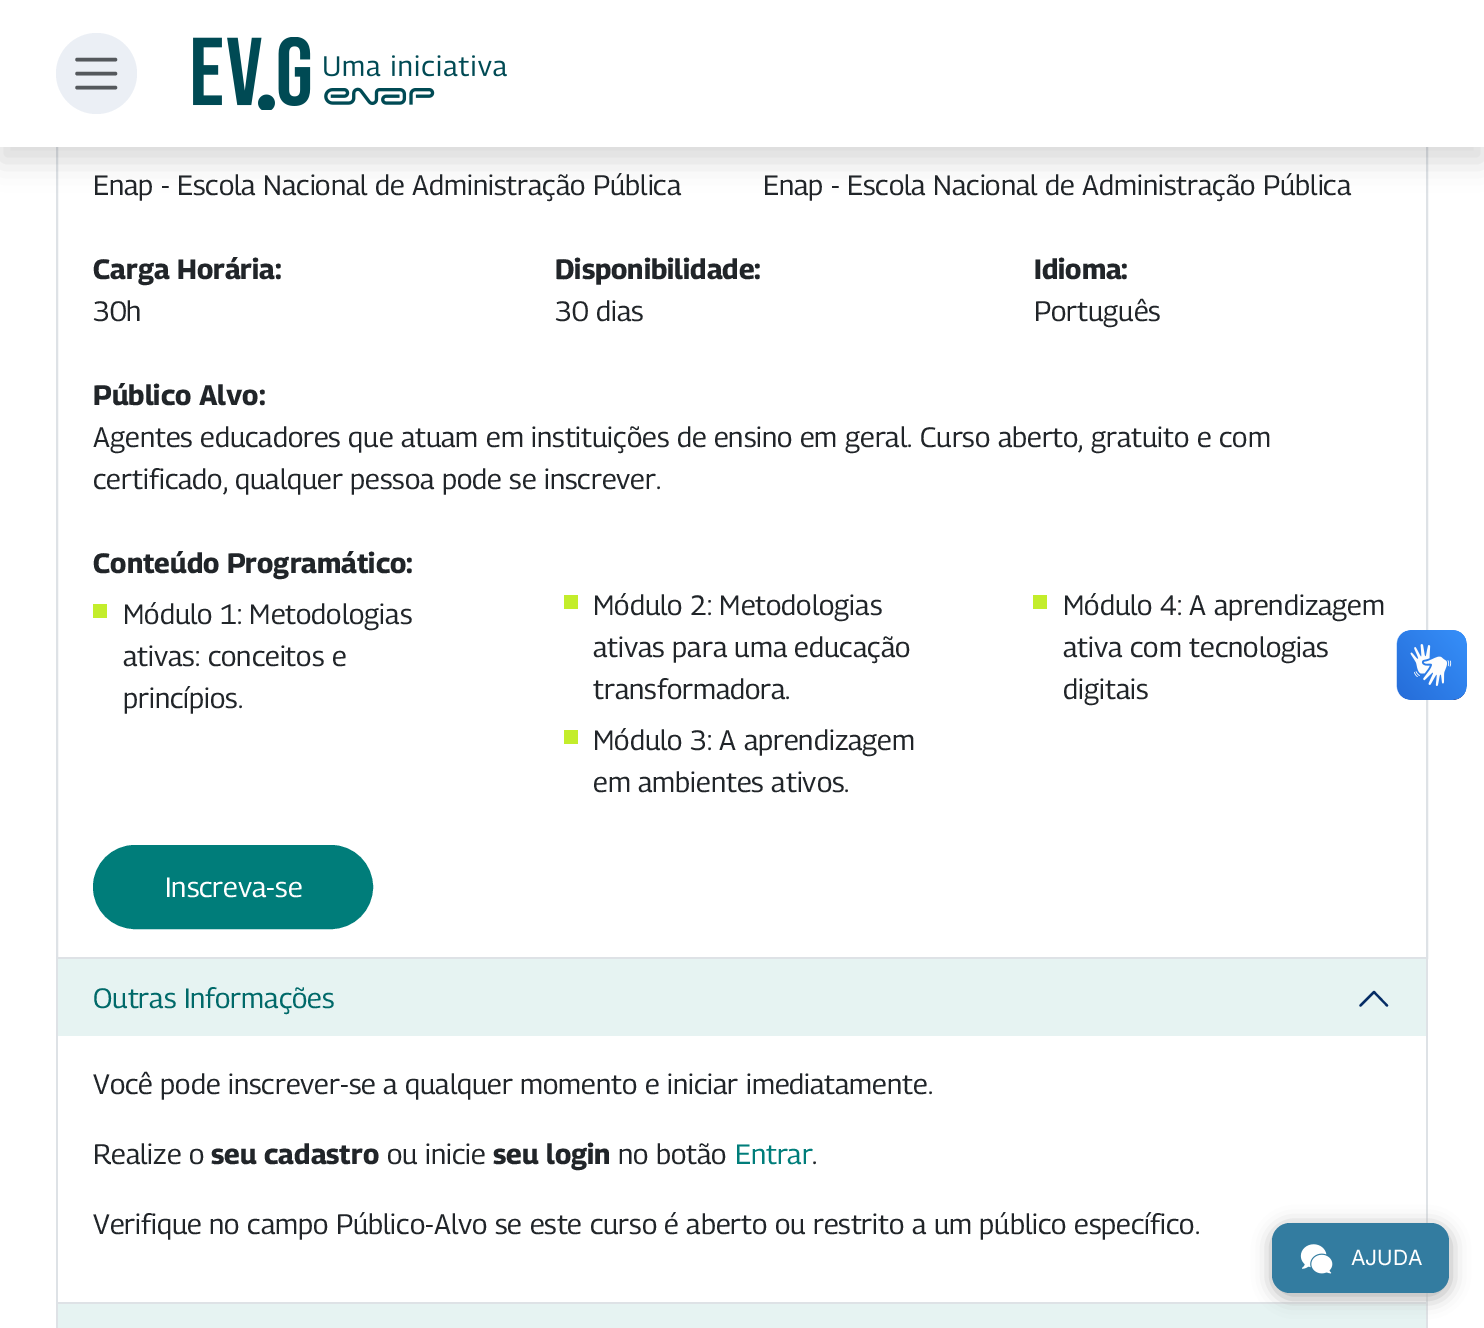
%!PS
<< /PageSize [1484 1328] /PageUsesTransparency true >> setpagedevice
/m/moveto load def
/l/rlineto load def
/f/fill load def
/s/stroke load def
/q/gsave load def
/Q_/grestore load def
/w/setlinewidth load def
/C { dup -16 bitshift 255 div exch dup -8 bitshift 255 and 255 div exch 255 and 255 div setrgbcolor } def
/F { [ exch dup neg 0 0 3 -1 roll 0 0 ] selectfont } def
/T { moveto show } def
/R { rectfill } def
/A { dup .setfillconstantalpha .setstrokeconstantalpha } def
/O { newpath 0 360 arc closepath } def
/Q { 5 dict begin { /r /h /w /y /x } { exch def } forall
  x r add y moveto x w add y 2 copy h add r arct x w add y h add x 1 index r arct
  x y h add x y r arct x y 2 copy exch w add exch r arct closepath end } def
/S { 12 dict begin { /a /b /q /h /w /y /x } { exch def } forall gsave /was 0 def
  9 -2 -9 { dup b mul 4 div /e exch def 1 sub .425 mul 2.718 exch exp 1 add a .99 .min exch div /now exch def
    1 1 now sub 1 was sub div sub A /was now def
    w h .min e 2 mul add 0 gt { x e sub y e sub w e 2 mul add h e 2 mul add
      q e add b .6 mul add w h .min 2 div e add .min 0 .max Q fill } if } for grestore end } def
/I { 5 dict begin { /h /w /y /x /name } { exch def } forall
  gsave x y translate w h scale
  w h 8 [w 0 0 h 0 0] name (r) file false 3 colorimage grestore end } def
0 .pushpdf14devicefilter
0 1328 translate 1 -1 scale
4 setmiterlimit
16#FFFFFF C
0 0 1484 1328 R
16#DEE2E6 C
2 w
57 17 1370 941 rectstroke
16#000000 C
0 14 1484 147 0 14 .15 S
16#FFFFFF C
0 0 1484 147 R
16#EBEFF5 C
96.5 73.5 40.5 O f
16#54585C C
3.5 w
1 setlinecap
77 59.5 m 38.5 0 l 77 73.5 m 38.5 0 l 77 87.5 m 38.5 0 l s
(1.rgb) 193 37 314 73 I
/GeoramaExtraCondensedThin-Regular 28 F
16#212529 C
(Enap - Escola Nacional de Administração Pública) 93 195 T
(Enap - Escola Nacional de Administração Pública) 763 195 T
/GeoramaExtraCondensedThin-Bold 28 F
(Carga Horária:) 93 279 T
/GeoramaExtraCondensedThin-Regular 28 F
(30h) 93 321 T
/GeoramaExtraCondensedThin-Bold 28 F
(Disponibilidade:) 555 279 T
/GeoramaExtraCondensedThin-Regular 28 F
(30 dias) 555 321 T
/GeoramaExtraCondensedThin-Bold 28 F
(Idioma:) 1034 279 T
/GeoramaExtraCondensedThin-Regular 28 F
(Português) 1034 321 T
/GeoramaExtraCondensedThin-Bold 28 F
(Público Alvo:) 93 405 T
/GeoramaExtraCondensedThin-Regular 28 F
(Agentes educadores que atuam em instituições de ensino em geral. Curso aberto, gratuito e com) 93 447 T
(certificado, qualquer pessoa pode se inscrever.) 93 489 T
/GeoramaExtraCondensedThin-Bold 28 F
(Conteúdo Programático:) 93 573 T
16#C3ED2B C
93 604 14 14 R
/GeoramaExtraCondensedThin-Regular 28 F
16#212529 C
(Módulo 1: Metodologias) 123 624 T
(ativas: conceitos e) 123 666 T
(princípios.) 123 708 T
16#C3ED2B C
564 595 14 14 R
16#212529 C
(Módulo 2: Metodologias) 593 615 T
(ativas para uma educação) 593 657 T
(transformadora.) 593 699 T
16#C3ED2B C
1033 595 14 14 R
16#212529 C
(Módulo 4: A aprendizagem) 1063 615 T
(ativa com tecnologias) 1063 657 T
(digitais) 1063 699 T
16#C3ED2B C
564 730 14 14 R
16#212529 C
(Módulo 3: A aprendizagem) 593 750 T
(em ambientes ativos.) 593 792 T
16#007D7A C
94 846 278 82 41 Q q f Q_
2 w
0 setlinecap
s
16#FFFFFF C
(Inscreva-se) 165 897 T
16#DEE2E6 C
1426 959 2 369 R
56 1302 1372 2 R
56 959 2 369 R
16#E6F3F2 C
58 959 1368 77 R
16#006969 C
(Outras Informações) 93 1008 T
16#052C65 C
2.2 w
1 setlinecap
1 setlinejoin
1387 1005.5 m -13 -13.5 l -13.5 13.5 l s
16#212529 C
(Você pode inscrever-se a qualquer momento e iniciar imediatamente.) 93 1094 T
(Realize o) 93 1164 T
/GeoramaExtraCondensedThin-Bold 28 F
(seu cadastro) 211 1164 T
/GeoramaExtraCondensedThin-Regular 28 F
(ou inicie) 387 1164 T
/GeoramaExtraCondensedThin-Bold 28 F
(seu login) 493 1164 T
/GeoramaExtraCondensedThin-Regular 28 F
(no botão) 618 1164 T
16#007D7A C
(Entrar) 735 1164 T
16#212529 C
(.) 812 1164 T
(Verifique no campo Público-Alvo se este curso é aberto ou restrito a um público específico.) 93 1234 T
16#E6F3F2 C
58 1304 1368 24 R
(2.rgb) 1396 630 71 70 I
(3.rgb) 1397 630 70 70 I
16#B5B5B5 C
1271 1225 180 74 19 9 1 S
16#337CA0 C
1272 1223 177 70 18 Q f
(4.rgb) 1300 1244 33 30 I
/Inter-Regular 21 F
16#FFFFFF C
(AJUDA) 1351 1265 T
.poppdf14devicefilter showpage
